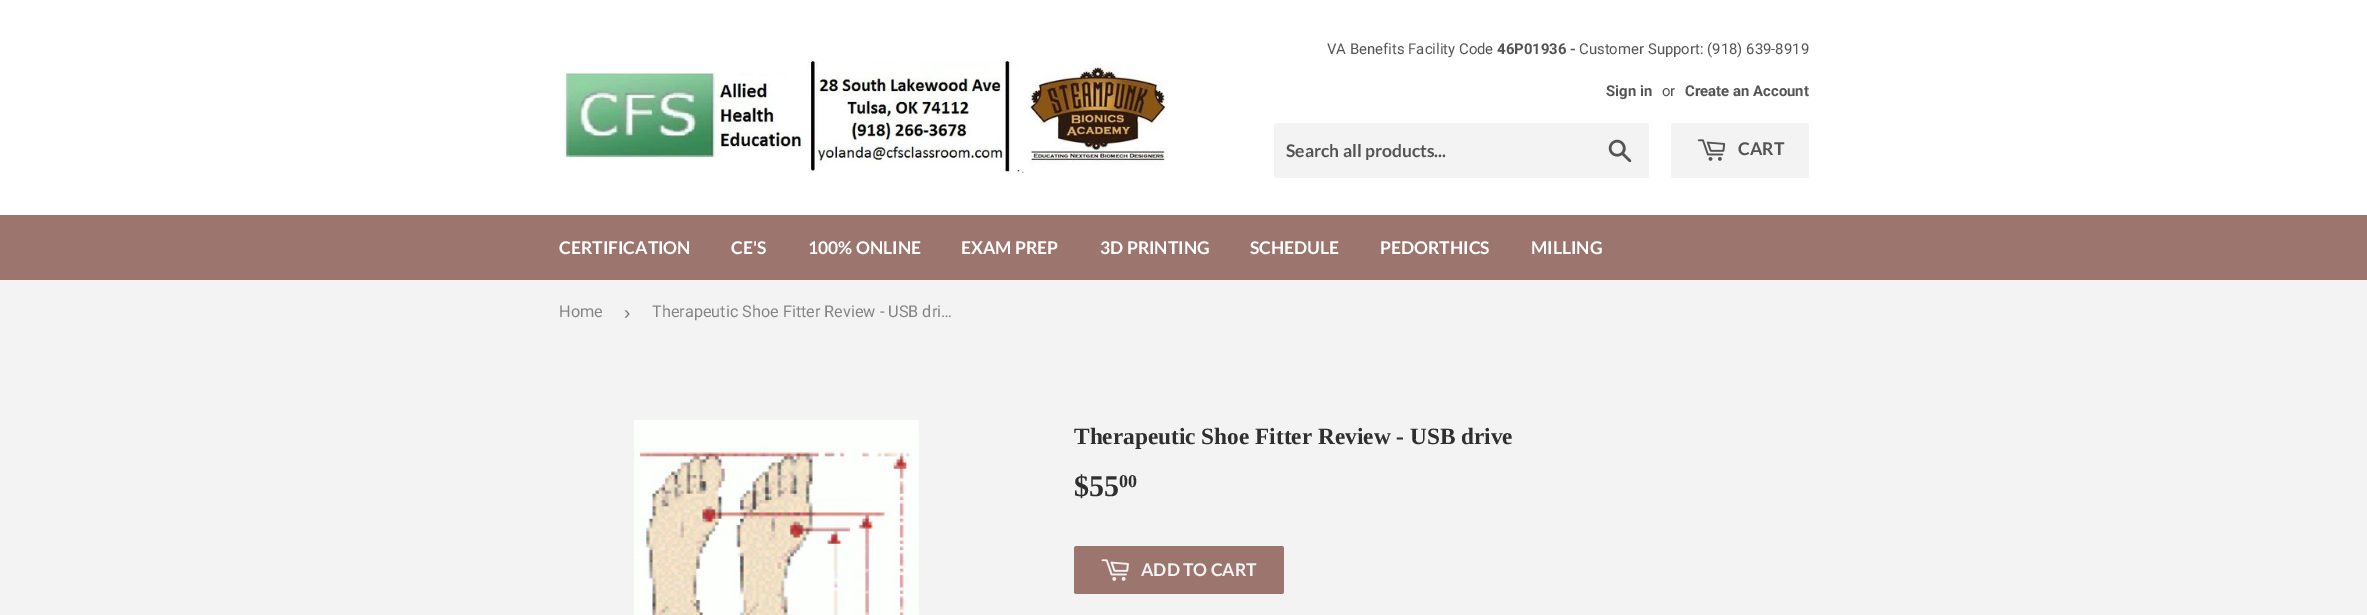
%!PS
<< /PageSize [2367 615] >> setpagedevice
/f/fill load def
/C { dup -16 bitshift 255 div exch dup -8 bitshift 255 and 255 div exch 255 and 255 div setrgbcolor } def
/F { [ exch dup neg 0 0 3 -1 roll 0 0 ] selectfont } def
/T { moveto show } def
/R { rectfill } def
/Q { 5 dict begin { /r /h /w /y /x } { exch def } forall
  x r add y moveto x w add y 2 copy h add r arct x w add y h add x 1 index r arct
  x y h add x y r arct x y 2 copy exch w add exch r arct closepath end } def
/I { 5 dict begin { /h /w /y /x /name } { exch def } forall
  gsave x y translate w h scale
  w h 8 [w 0 0 h 0 0] name (r) file false 3 colorimage grestore end } def
0 615 translate 1 -1 scale
4 setmiterlimit
16#F3F3F3 C
0 0 2367 615 R
16#FFFFFF C
0 0 2367 215 R
(1.rgb) 564 61 604 112 I
/Roboto-Regular 14.9 F
16#545454 C
(VA Benefits Facility Code) 1327 54 T
/Roboto-Bold 14.9 F
(46P01936 -) 1497 54 T
/Roboto-Regular 14.9 F
(Customer Support: \(918\) 639-8919) 1579 54 T
/Roboto-Bold 14.9 F
(Sign in) 1606 96 T
/Roboto-Regular 14.9 F
(or) 1662 96 T
/Roboto-Bold 14.9 F
(Create an Account) 1685 96 T
16#F3F3F3 C
1274 123 375 55 2.5 Q f
/Lato-Bold 17.5 F
16#545454 C
(Search all products...) 1286 157 T
(2.rgb) 1608 139 24 24 I
16#F3F3F3 C
1671 123 138 55 2.5 Q f
(3.rgb) 1697 139 29 22 I
16#545454 C
(CART) 1738 155 T
16#9C756F C
0 215 2367 65 R
16#FFFFFF C
(CERTIFICATION) 559 254 T
(CE'S) 731 254 T
(100% ONLINE) 808 254 T
(EXAM PREP) 961 254 T
(3D PRINTING) 1100 254 T
(SCHEDULE) 1250 254 T
(PEDORTHICS) 1380 254 T
(MILLING) 1531 254 T
/Roboto-Regular 16.25 F
16#858585 C
(Home) 559 317 T
/LiberationSans-Regular 19 F
16#767676 C
(›) 624 319 T
/Roboto-Regular 16.25 F
16#858585 C
(Therapeutic Shoe Fitter Review - USB dri…) 652 317 T
(4.rgb) 634 420 285 195 I
/LiberationSerif-Bold 23.3 F
16#2F2F2F C
(Therapeutic Shoe Fitter Review - USB drive) 1074 444 T
/LiberationSerif-Bold 30 F
($55) 1074 496 T
/LiberationSerif-Bold 18 F
(00) 1119 487 T
16#9C756F C
1074 546 210 48 2.5 Q f
(5.rgb) 1101 559 28 22 I
/Lato-Bold 17.5 F
16#F3F3F3 C
(ADD TO CART) 1141 576 T
showpage
